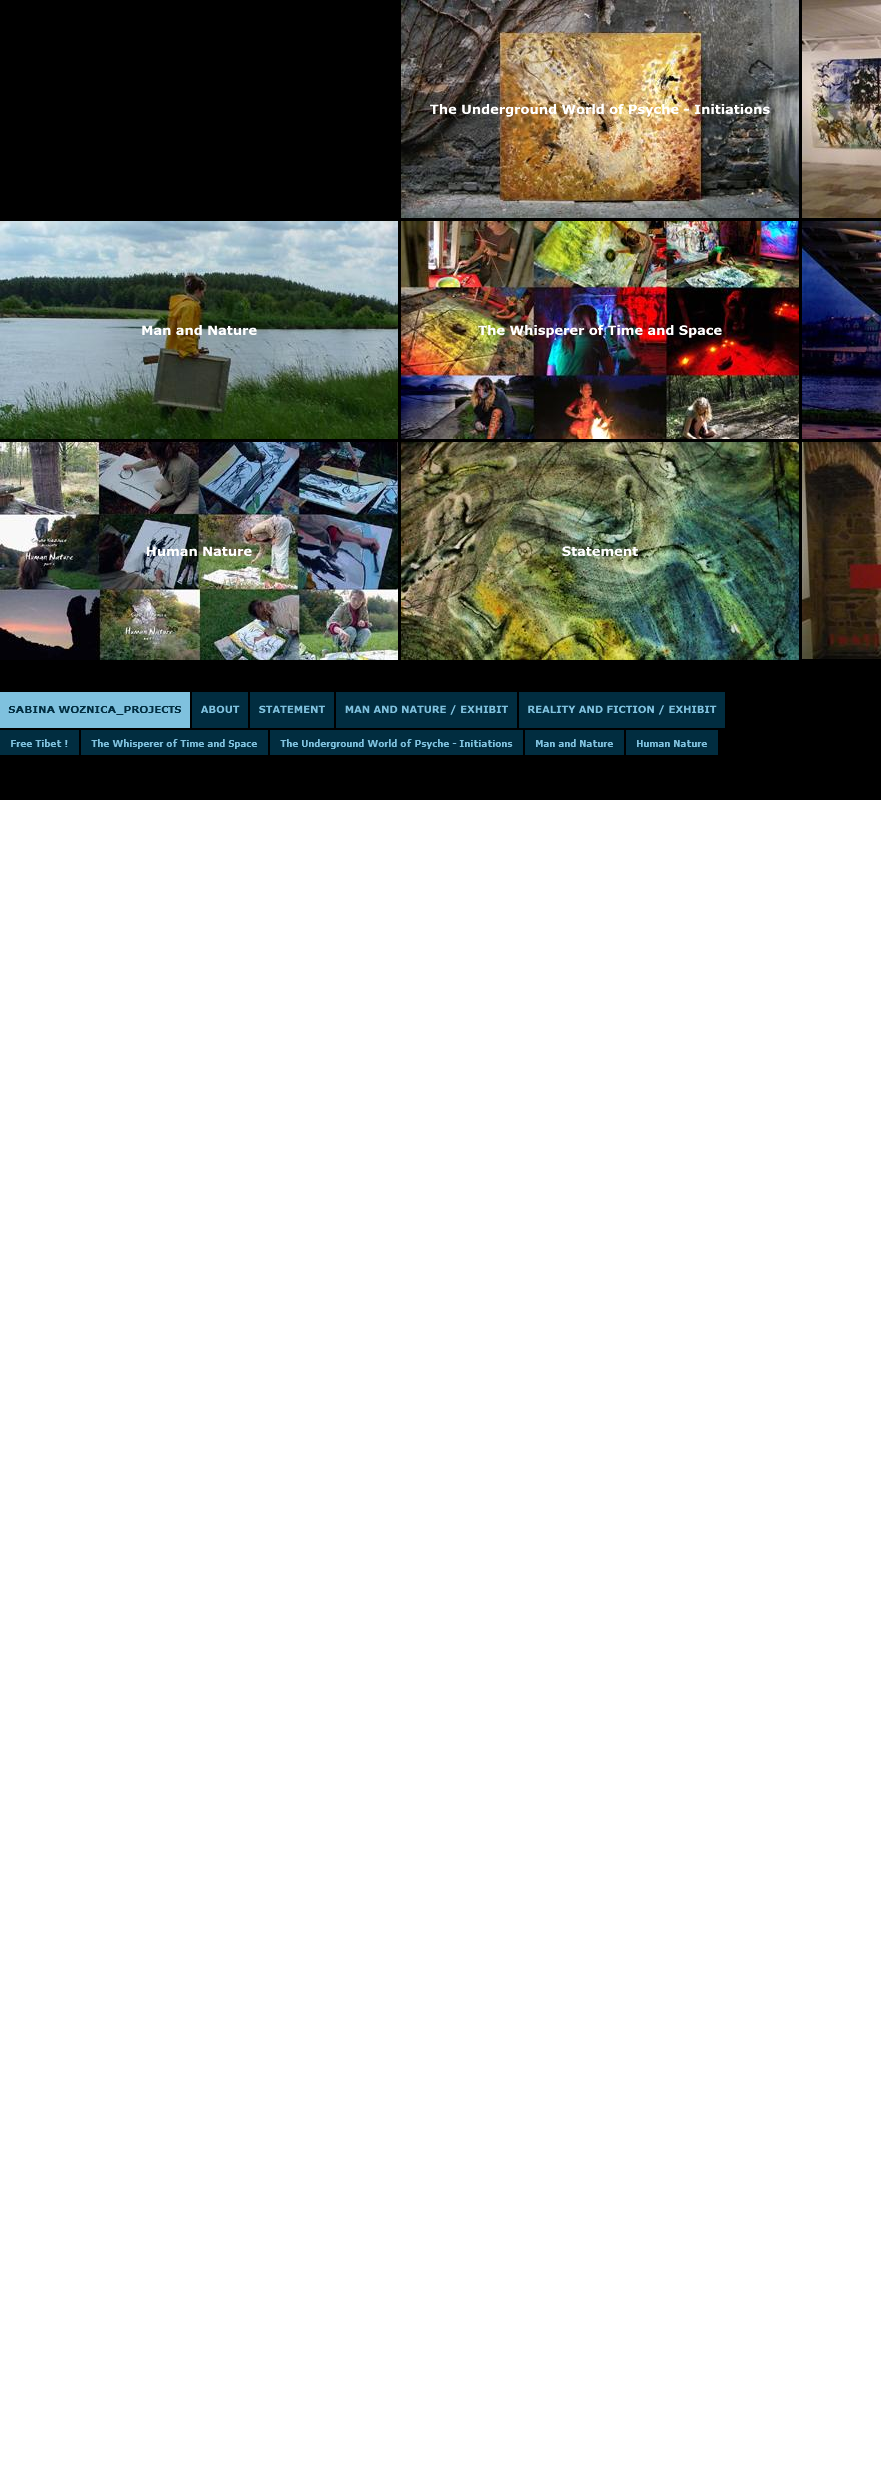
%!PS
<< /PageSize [881 2482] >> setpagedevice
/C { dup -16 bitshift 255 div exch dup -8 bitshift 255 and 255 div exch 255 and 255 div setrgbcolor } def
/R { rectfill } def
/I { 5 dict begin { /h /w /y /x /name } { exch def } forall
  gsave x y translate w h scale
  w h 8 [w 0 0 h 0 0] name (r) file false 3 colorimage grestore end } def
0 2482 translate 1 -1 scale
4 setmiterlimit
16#FFFFFF C
0 0 881 2482 R
16#000000 C
0 0 881 800 R
(1.rgb) 401 0 398 218 I
(2.rgb) 802 0 79 218 I
(3.rgb) 0 221 398 218 I
(4.rgb) 401 221 398 218 I
(5.rgb) 802 221 79 218 I
(6.rgb) 0 442 398 218 I
(7.rgb) 401 442 398 218 I
(8.rgb) 802 442 79 217 I
(9.rgb) 0 692 190 36 I
(10.rgb) 192 692 56 36 I
(11.rgb) 250 692 84 36 I
(12.rgb) 336 692 181 36 I
(13.rgb) 519 692 206 36 I
(14.rgb) 0 730 79 25 I
(15.rgb) 81 730 187 25 I
(16.rgb) 270 730 253 25 I
(17.rgb) 525 730 99 25 I
(18.rgb) 626 730 92 25 I
showpage
